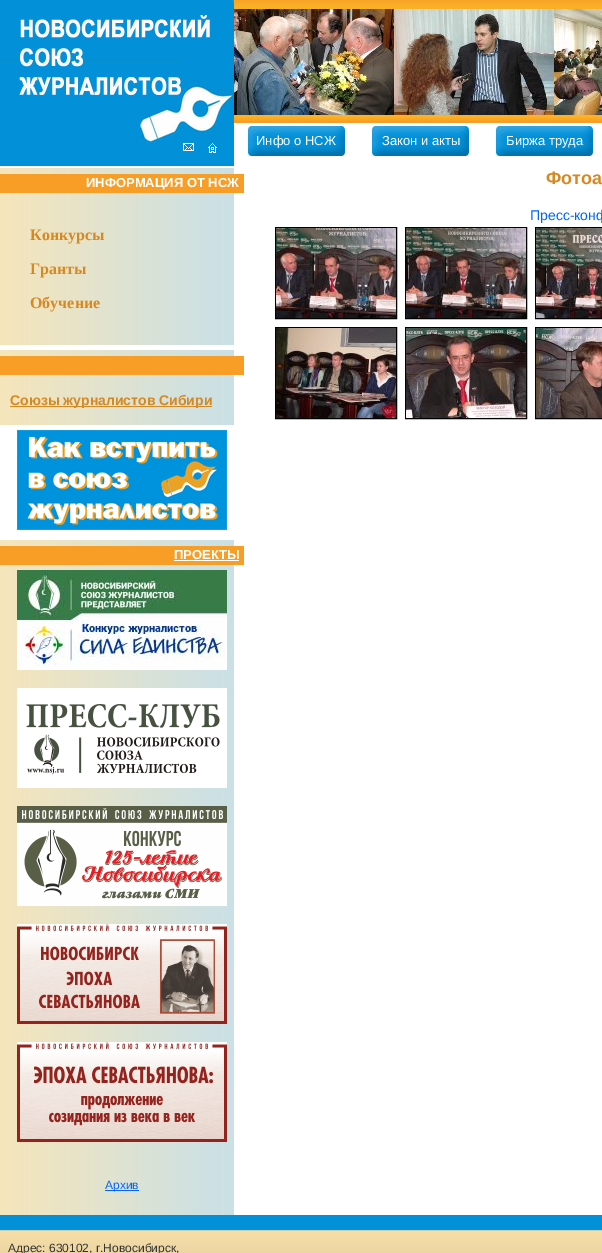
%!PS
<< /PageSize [602 1253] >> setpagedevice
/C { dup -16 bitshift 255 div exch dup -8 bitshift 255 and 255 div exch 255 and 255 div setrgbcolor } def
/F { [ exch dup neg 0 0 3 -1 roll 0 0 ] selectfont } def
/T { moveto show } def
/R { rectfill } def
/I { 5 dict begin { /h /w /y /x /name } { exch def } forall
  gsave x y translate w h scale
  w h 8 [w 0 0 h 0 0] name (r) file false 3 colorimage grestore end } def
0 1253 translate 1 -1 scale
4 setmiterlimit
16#FFFFFF C
0 0 602 1253 R
16#0290D8 C
0 146 234 20 R
(3.rgb) 0 0 234 146 I
(1.rgb) 183 143 11 8 I
(2.rgb) 208 143 9 10 I
(4.rgb) 234 0 368 123 I
(5.rgb) 234 9 160 106 I
(6.rgb) 394 9 160 106 I
(7.rgb) 554 9 48 106 I
(8.rgb) 248 126 97 30 I
/LiberationSans-Regular 13 F
16#FFFFFF C
(Инфо о НСЖ) 256 145 T
(8.rgb) 372 126 97 30 I
(Закон и акты) 382 145 T
(8.rgb) 496 126 97 30 I
(Биржа труда) 506 145 T
(9.rgb) 0 168 234 1047 I
16#F89E26 C
0 174 244 19 R
/LiberationSans-Bold 13 F
16#FFFFFF C
(ИНФОРМАЦИЯ ОТ НСЖ) 86 187 T
/LiberationSerif-Bold 16 F
16#D78921 C
(Конкурсы) 30 240 T
(Гранты) 30 274 T
(Обучение) 30 308 T
16#FFFFFF C
0 345 234 5 R
16#F89E26 C
0 356 244 19 R
16#D78921 C
10 406 202 1 R
/LiberationSans-Bold 14 F
(Союзы журналистов Сибири) 10 405 T
16#FFFFFF C
0 425 234 115 R
(10.rgb) 17 430 210 100 I
16#F89E26 C
0 546 244 19 R
/LiberationSans-Bold 13 F
16#FFFFFF C
(ПРОЕКТЫ) 174 559 T
174 560 65 1 R
(11.rgb) 17 570 210 100 I
(12.rgb) 17 688 210 100 I
(13.rgb) 17 806 210 100 I
(14.rgb) 17 924 210 100 I
(15.rgb) 17 1042 210 100 I
16#0066FF C
105 1190 34 1 R
/LiberationSans-Regular 12 F
(Архив) 105 1189 T
/LiberationSans-Bold 18 F
16#D78921 C
(Фотоа) 546 184 T
/LiberationSans-Regular 14 F
16#0066FF C
(Пресс-конф) 530 220 T
16#000000 C
275.5 227.5 121 91 rectstroke
(16.rgb) 276 228 120 90 I
405.5 227.5 121 91 rectstroke
(17.rgb) 406 228 120 90 I
535.5 227.5 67 91 rectstroke
(18.rgb) 536 228 66 90 I
275.5 327.5 121 91 rectstroke
(19.rgb) 276 328 120 90 I
405.5 327.5 121 91 rectstroke
(20.rgb) 406 328 120 90 I
535.5 327.5 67 91 rectstroke
(21.rgb) 536 328 66 90 I
(22.rgb) 0 1215 602 38 I
/LiberationSans-Regular 12 F
16#343633 C
(Адрес: 630102, г.Новосибирск,) 8 1252 T
showpage
